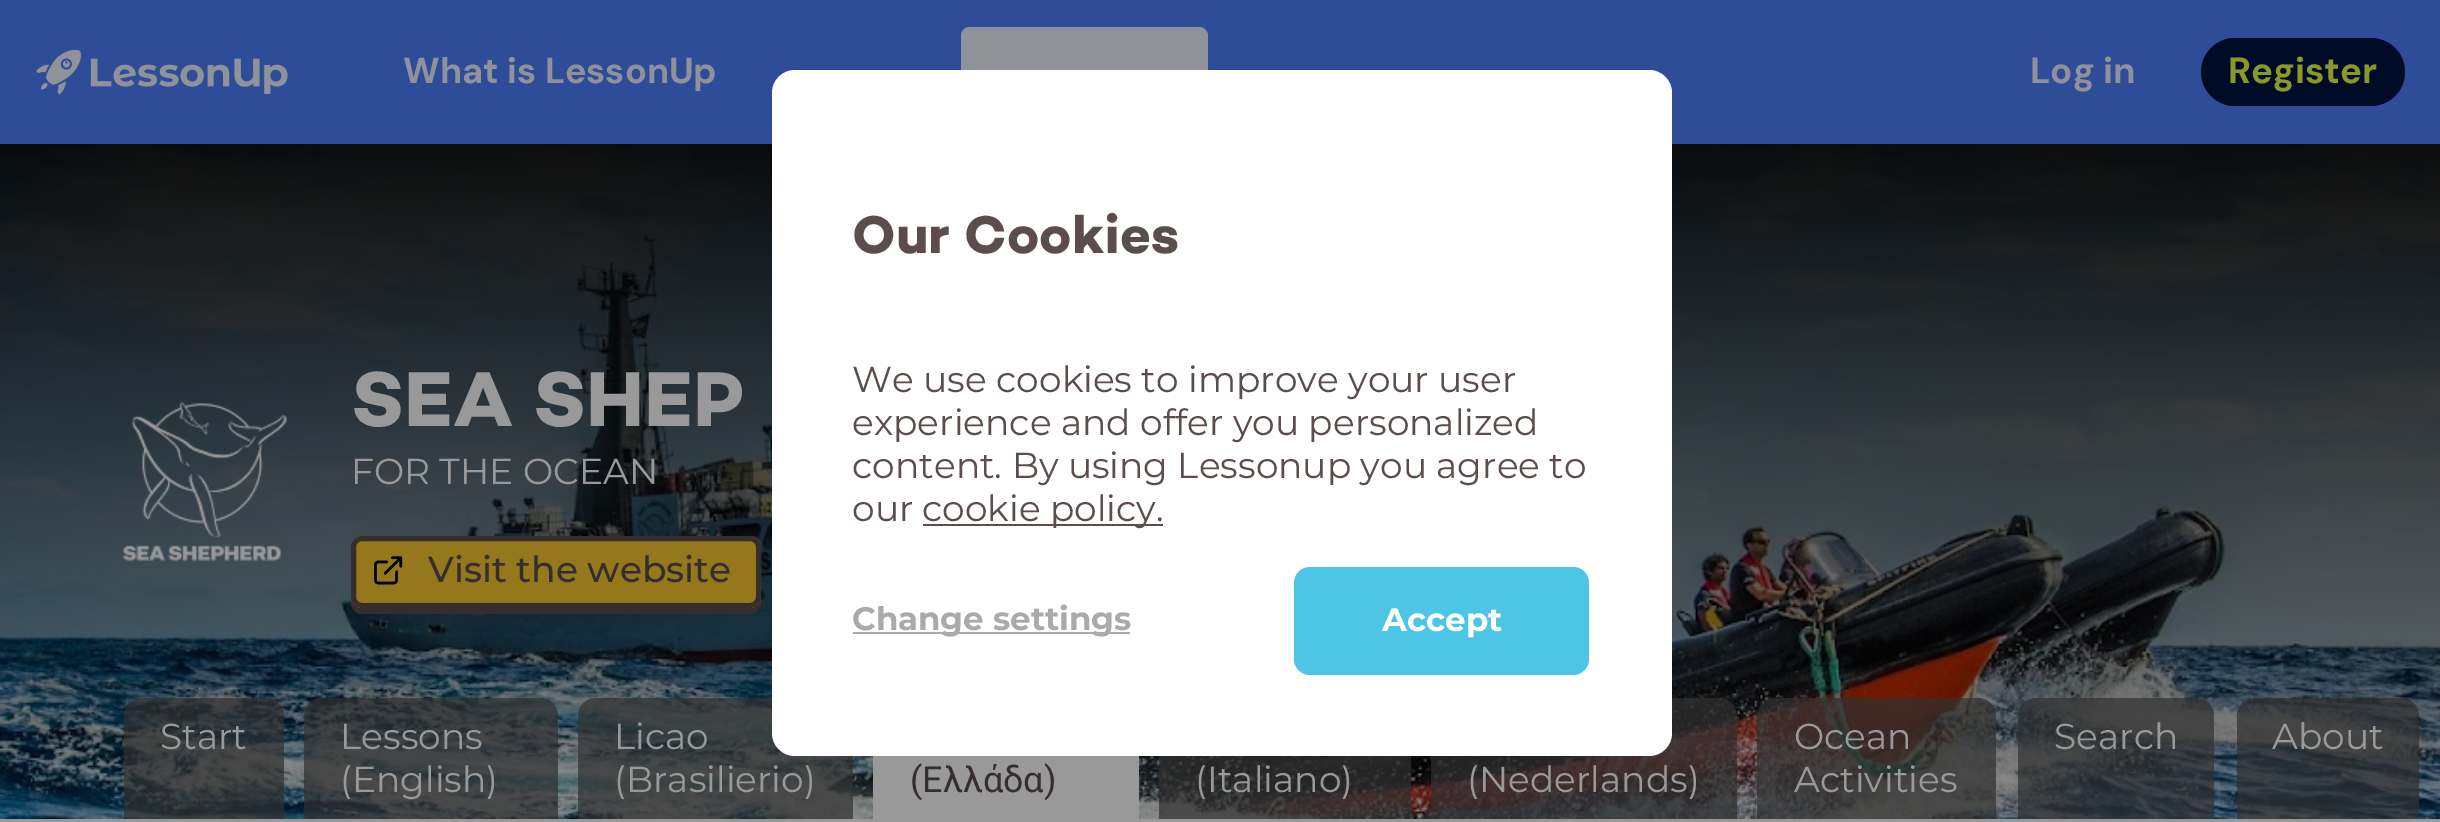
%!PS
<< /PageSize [2440 822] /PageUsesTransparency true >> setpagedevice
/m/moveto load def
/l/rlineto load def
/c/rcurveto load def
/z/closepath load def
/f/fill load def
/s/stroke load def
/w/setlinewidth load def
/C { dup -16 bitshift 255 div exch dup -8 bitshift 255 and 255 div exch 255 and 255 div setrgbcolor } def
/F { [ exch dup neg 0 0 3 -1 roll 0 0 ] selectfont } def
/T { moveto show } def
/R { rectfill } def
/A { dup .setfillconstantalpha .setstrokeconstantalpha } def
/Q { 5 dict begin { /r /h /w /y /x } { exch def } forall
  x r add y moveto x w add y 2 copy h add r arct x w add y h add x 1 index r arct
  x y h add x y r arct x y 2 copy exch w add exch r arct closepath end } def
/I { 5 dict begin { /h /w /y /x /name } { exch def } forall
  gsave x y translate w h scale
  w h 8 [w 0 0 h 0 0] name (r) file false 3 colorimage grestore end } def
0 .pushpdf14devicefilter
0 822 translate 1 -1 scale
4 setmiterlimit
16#999999 C
0 0 2440 822 R
16#2F4C99 C
0 0 2440 144 R
(1.rgb) 36 50 252 45 I
/DMSans-Bold 36 F
16#8F9299 C
(What is LessonUp) 403 83 T
961 27 247 90 9 Q f
/DMSans-Bold 36.5 F
(Log in) 2030 83 T
16#000B28 C
2201 38 204 68 34 Q f
16#899929 C
(Register) 2228 83 T
(2.rgb) 0 144 2440 675 I
(3.rgb) 122 401 165 161 I
/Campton-Bold 79 F
16#999999 C
(SEA SHEP) 351 426 T
/Montserrat-Regular 36 F
(FOR THE OCEAN) 351 484 T
16#362E2E C
351 596 m 0 7 l 0 6 5 11 11 11 c 388 0 l 6 0 11 -5 11 -11 c 0 -50 l -1 -3 l 0 46 l 0 6 -5 12 -11 12 c -387 0 l -6 0 -11 -6 -11 -12 c z f
16#95781B C
351 536 410 72 11 Q f
(4.rgb) 374 556 29 29 I
16#362E2E C
5 w
353.5 538.5 405 67 8.5 Q s
/Montserrat-Medium 36 F
(Visit the website) 428 582 T
0.7 A
16#303030 C
142 698 m 124 0 l 10 0 18 8 18 18 c 0 103 l -160 0 l 0 -103 l 0 -10 8 -18 18 -18 c z f
/Montserrat-Regular 36 F
1 A
16#999999 C
(Start) 160 749 T
0.7 A
16#303030 C
322 698 m 218 0 l 10 0 18 8 18 18 c 0 103 l -254 0 l 0 -103 l 0 -10 8 -18 18 -18 c z f
1 A
16#999999 C
(Lessons) 340 749 T
(\(English\)) 340 792 T
0.7 A
16#303030 C
596 698 m 239 0 l 10 0 18 8 18 18 c 0 103 l -275 0 l 0 -103 l 0 -10 8 -18 18 -18 c z f
1 A
16#999999 C
(Licao) 614 749 T
(\(Brasilierio\)) 614 792 T
873 756 266 63 R
/Roboto-Regular 36 F
16#362E2E C
(\(Ελλάδα\)) 910 792 T
0.7 A
16#303030 C
1159 756 252 63 R
/Montserrat-Regular 36 F
1 A
16#999999 C
(\(Italiano\)) 1195 792 T
0.7 A
16#303030 C
1449 698 m 270 0 l 10 0 18 8 18 18 c 0 103 l -306 0 l 0 -103 l 0 -10 8 -18 18 -18 c z f
1 A
16#999999 C
(\(Nederlands\)) 1467 792 T
0.7 A
16#303030 C
1775 698 m 203 0 l 10 0 18 8 18 18 c 0 103 l -239 0 l 0 -103 l 0 -10 8 -18 18 -18 c z f
1 A
16#999999 C
(Ocean) 1794 749 T
(Activities) 1794 792 T
0.7 A
16#303030 C
2036 698 m 160 0 l 10 0 18 8 18 18 c 0 103 l -196 0 l 0 -103 l 0 -10 8 -18 18 -18 c z f
1 A
16#999999 C
(Search) 2054 749 T
0.7 A
16#303030 C
2255 698 m 146 0 l 10 0 18 8 18 18 c 0 103 l -182 0 l 0 -103 l 0 -10 8 -18 18 -18 c z f
1 A
16#999999 C
(About) 2272 749 T
16#FFFFFF C
772 70 900 686 23 Q f
/Campton-Bold 54 F
16#5A4D4C C
(Our Cookies) 852 253 T
/Montserrat-Regular 36 F
(We use cookies to improve your user) 852 392 T
(experience and offer you personalized) 852 435 T
(content. By using Lessonup you agree to) 852 478 T
(our) 852 521 T
923 524 240 2 R
(cookie policy.) 922 521 T
16#AAAAAA C
853 632 277 2 R
/Montserrat-Bold 32.5 F
(Change settings) 852 630 T
16#4DC6E6 C
1294 567 295 108 16 Q f
16#FFFFFF C
(Accept) 1382 631 T
.poppdf14devicefilter showpage
